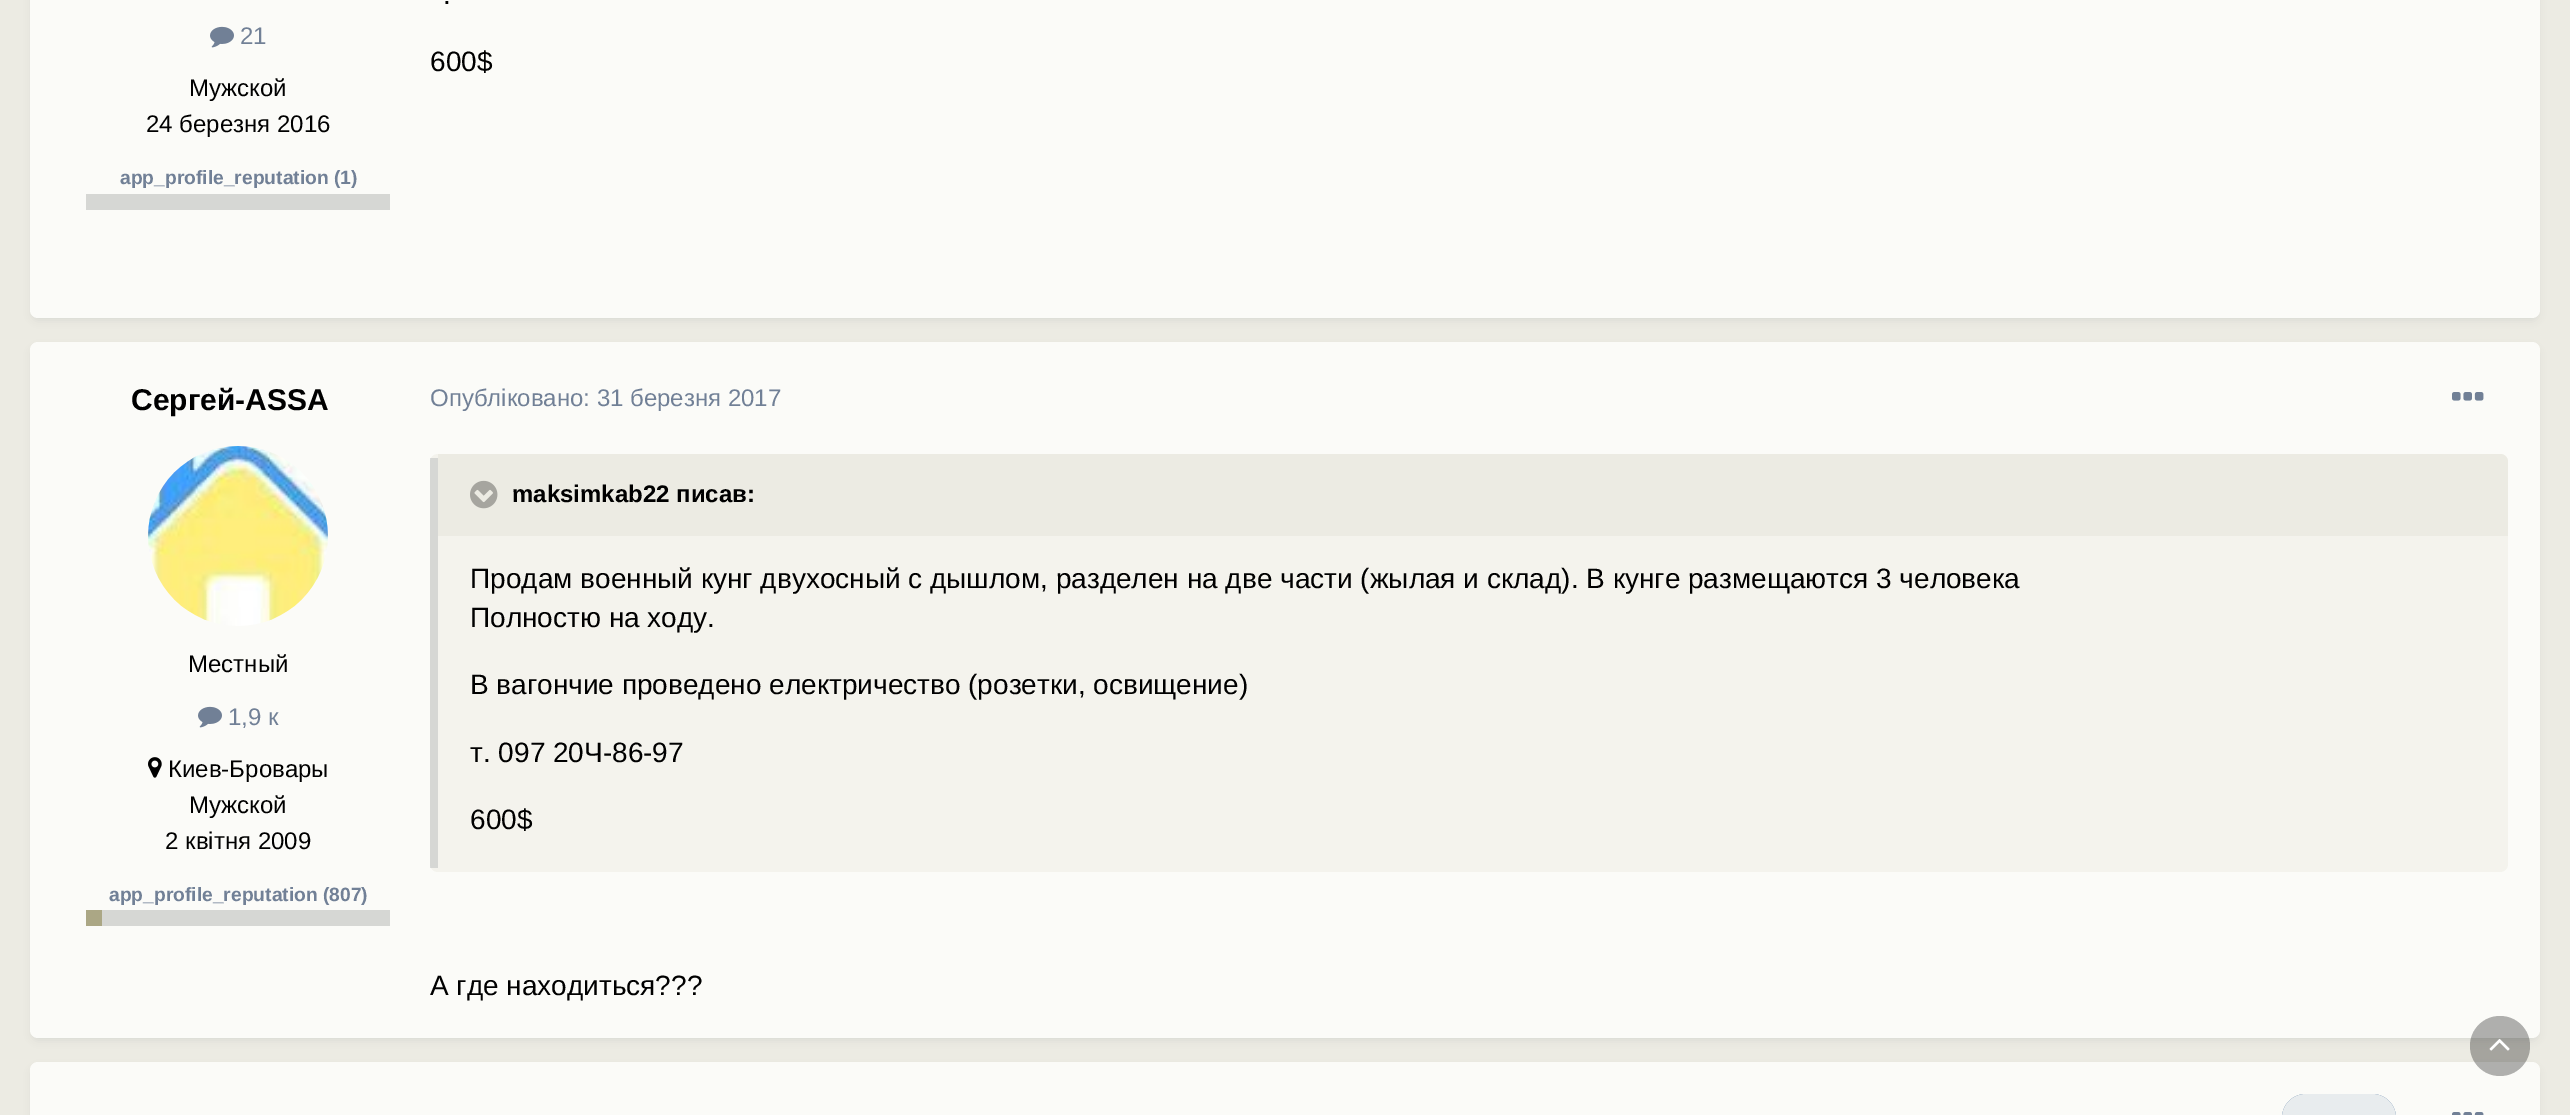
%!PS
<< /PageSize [2570 1115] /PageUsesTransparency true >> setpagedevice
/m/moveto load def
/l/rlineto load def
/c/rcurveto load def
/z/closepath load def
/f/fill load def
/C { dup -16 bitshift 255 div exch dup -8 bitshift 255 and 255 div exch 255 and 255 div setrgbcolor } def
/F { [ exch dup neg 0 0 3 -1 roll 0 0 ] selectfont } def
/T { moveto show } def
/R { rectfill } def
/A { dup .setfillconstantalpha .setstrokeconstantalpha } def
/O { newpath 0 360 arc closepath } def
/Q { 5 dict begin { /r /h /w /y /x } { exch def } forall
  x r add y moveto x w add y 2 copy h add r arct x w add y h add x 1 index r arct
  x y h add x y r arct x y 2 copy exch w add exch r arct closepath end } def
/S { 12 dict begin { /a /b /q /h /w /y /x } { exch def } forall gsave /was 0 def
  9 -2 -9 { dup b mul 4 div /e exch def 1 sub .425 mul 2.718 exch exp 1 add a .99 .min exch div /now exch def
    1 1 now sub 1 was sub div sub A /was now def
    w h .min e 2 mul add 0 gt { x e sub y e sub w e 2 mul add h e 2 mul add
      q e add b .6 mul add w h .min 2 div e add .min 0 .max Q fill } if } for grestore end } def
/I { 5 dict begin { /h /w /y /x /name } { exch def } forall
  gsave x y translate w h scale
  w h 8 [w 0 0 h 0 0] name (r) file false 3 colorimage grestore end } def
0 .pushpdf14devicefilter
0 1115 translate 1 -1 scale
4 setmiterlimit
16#ECEBE3 C
0 0 2570 1115 R
16#2D3748 C
32 -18 2506 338 6 4 .1 S
16#FBFBF8 C
30 -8 2510 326 8 Q f
(1.rgb) 210 26 24 22 I
/LiberationSans-Regular 24 F
16#718096 C
(21) 240 44 T
16#000000 C
(Мужской) 189 96 T
(24 березня 2016) 146 132 T
/LiberationSans-Bold 19.25 F
16#718096 C
(app_profile_reputation \(1\)) 120 184 T
16#D6D7D4 C
86 194 304 16 R
/LiberationSans-Regular 28 F
16#000000 C
(.) 443 4 T
(600$) 430 71 T
16#2D3748 C
32 348 2506 692 6 4 .1 S
16#FBFBF8 C
30 342 2510 696 8 Q f
/LiberationSans-Bold 30 F
16#000000 C
(Сергей-ASSA) 131 410 T
(2.rgb) 148 446 180 180 I
/LiberationSans-Regular 24 F
(Местный) 188 672 T
(1.rgb) 198 706 24 22 I
16#718096 C
(1,9 к) 228 725 T
(3.rgb) 148 757 14 21 I
16#000000 C
(Киев-Бровары) 168 777 T
(Мужской) 189 813 T
(2 квітня 2009) 165 849 T
/LiberationSans-Bold 19.25 F
16#718096 C
(app_profile_reputation \(807\)) 109 901 T
16#D6D7D4 C
102 910 288 16 R
16#ABA785 C
86 910 16 16 R
/LiberationSans-Regular 24 F
16#718096 C
(Опубліковано: 31 березня 2017) 430 406 T
(4.rgb) 2452 392 32 9 I
16#F4F3ED C
430 454 2078 418 8 Q f
0.15 A
16#2D3748 C
430 458 8 410 R
1 A
16#ECEBE3 C
438 454 m 2062 0 l 4.5 0 8 3.5 8 8 c 0 74 l -2070 0 l z f
(5.rgb) 470 480 28 29 I
/LiberationSans-Bold 24 F
16#000000 C
(maksimkab22 писав:) 512 502 T
/LiberationSans-Regular 28 F
(Продам военный кунг двухосный с дышлом, разделен на две части \(жылая и склад\). В кунге размещаются 3 человека) 470 588 T
(Полностю на ходу.) 470 627 T
(В вагончие проведено електричество \(розетки, освищение\)) 470 694 T
(т. 097 20Ч-86-97) 470 762 T
(600$) 470 829 T
(А где находиться???) 430 995 T
16#2D3748 C
32 1068 2506 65 6 4 .1 S
16#FBFBF8 C
30 1062 2510 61 8 Q f
16#3D6594 C
2282 1094 114 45 24 Q f
0.9 A
16#FBFBF8 C
2282 1094 114 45 24 Q f
1 A
(6.rgb) 2452 1112 32 3 I
0.3 A
16#000000 C
2500 1046 30 O f
1 A
(7.rgb) 2489 1039 21 12 I
.poppdf14devicefilter showpage
